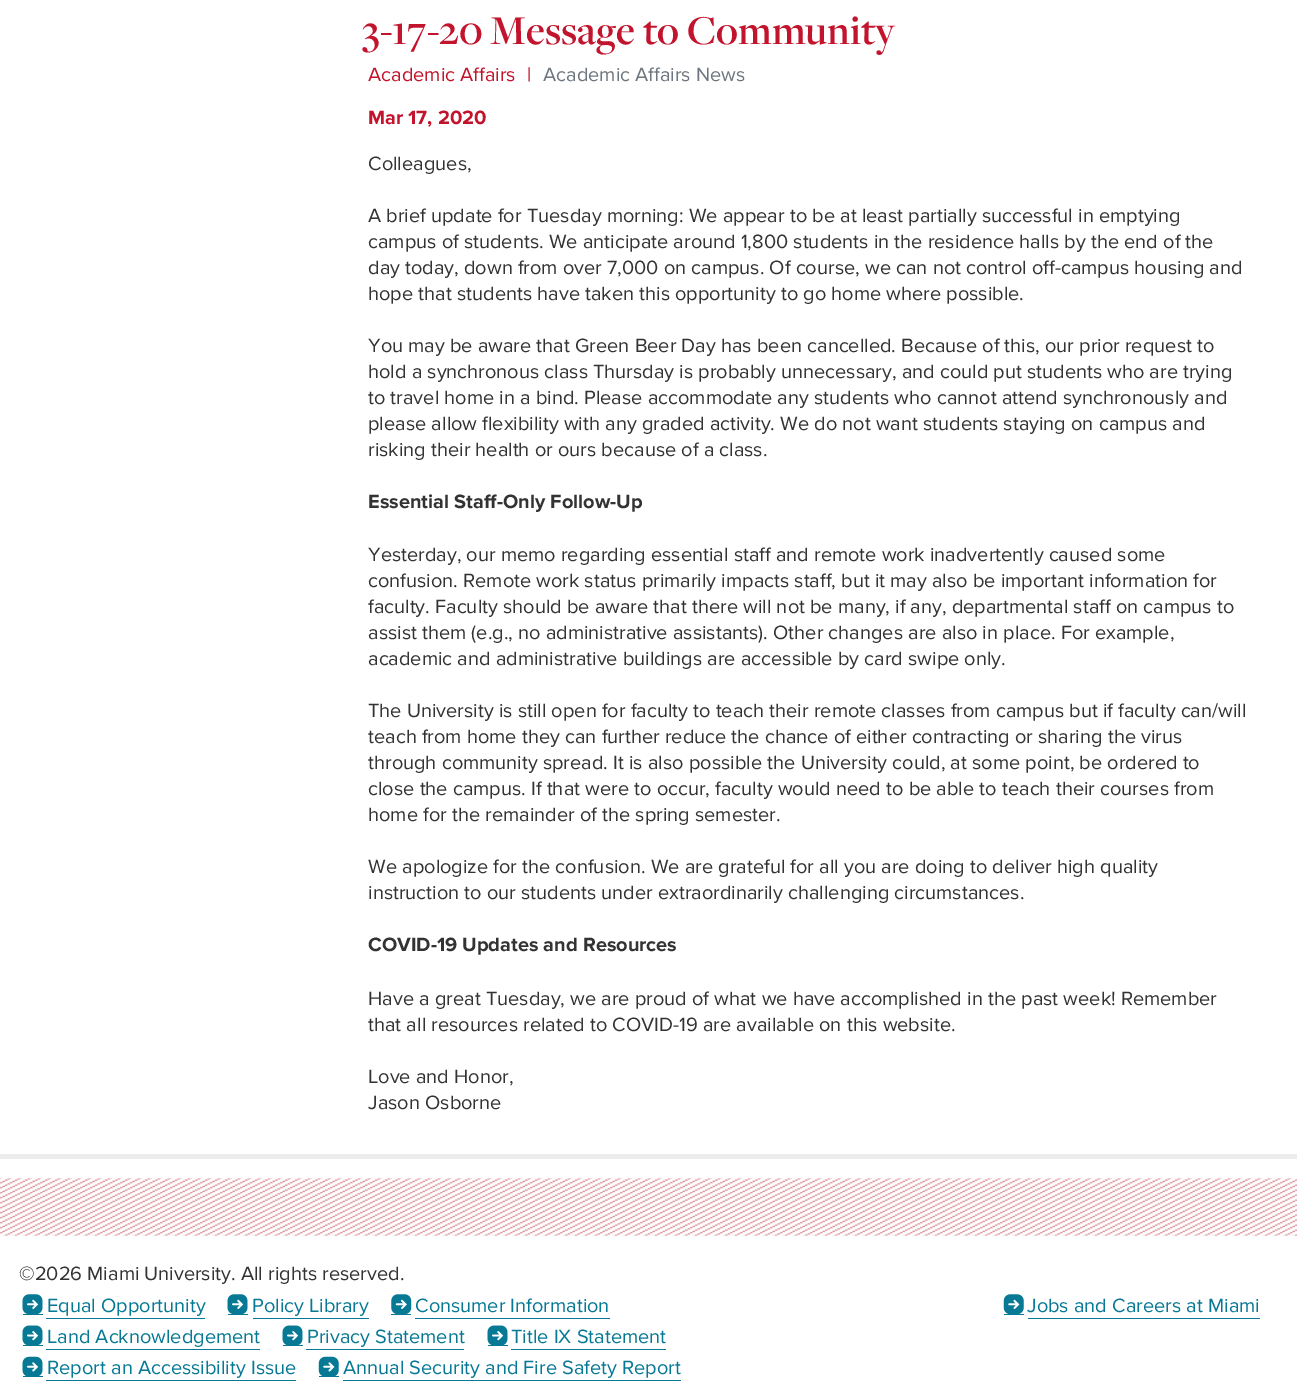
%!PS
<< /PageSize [1297 1386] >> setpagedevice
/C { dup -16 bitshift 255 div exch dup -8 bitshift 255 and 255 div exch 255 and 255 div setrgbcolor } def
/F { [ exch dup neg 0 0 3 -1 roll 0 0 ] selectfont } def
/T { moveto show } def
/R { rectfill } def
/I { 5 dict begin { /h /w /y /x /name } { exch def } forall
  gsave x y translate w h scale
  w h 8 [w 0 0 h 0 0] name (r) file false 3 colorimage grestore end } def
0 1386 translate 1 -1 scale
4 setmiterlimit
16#FFFFFF C
0 0 1297 1386 R
/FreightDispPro-SemiBold 42.5 F
16#C3142D C
(3-17-20 Message to Community) 362 44 T
/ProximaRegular-Regular 20 F
(Academic Affairs) 368 81 T
(|) 527 81 T
16#6D767E C
(Academic Affairs News) 543 81 T
/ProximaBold-Bold 20 F
16#C3142D C
(Mar 17, 2020) 368 124 T
/ProximaRegular-Regular 20 F
16#333333 C
(Colleagues,) 368 170 T
(A brief update for Tuesday morning: We appear to be at least partially successful in emptying) 368 222 T
(campus of students. We anticipate around 1,800 students in the residence halls by the end of the) 368 248 T
(day today, down from over 7,000 on campus. Of course, we can not control off-campus housing and) 368 274 T
(hope that students have taken this opportunity to go home where possible.) 368 300 T
(You may be aware that Green Beer Day has been cancelled. Because of this, our prior request to) 368 352 T
(hold a synchronous class Thursday is probably unnecessary, and could put students who are trying) 368 378 T
(to travel home in a bind. Please accommodate any students who cannot attend synchronously and) 368 404 T
(please allow flexibility with any graded activity. We do not want students staying on campus and) 368 430 T
(risking their health or ours because of a class.) 368 456 T
/ProximaBold-Bold 20 F
(Essential Staff-Only Follow-Up) 368 508 T
/ProximaRegular-Regular 20 F
(Yesterday, our memo regarding essential staff and remote work inadvertently caused some) 368 561 T
(confusion. Remote work status primarily impacts staff, but it may also be important information for) 368 587 T
(faculty. Faculty should be aware that there will not be many, if any, departmental staff on campus to) 368 613 T
(assist them \(e.g., no administrative assistants\). Other changes are also in place. For example,) 368 639 T
(academic and administrative buildings are accessible by card swipe only.) 368 665 T
(The University is still open for faculty to teach their remote classes from campus but if faculty can/will) 368 717 T
(teach from home they can further reduce the chance of either contracting or sharing the virus) 368 743 T
(through community spread. It is also possible the University could, at some point, be ordered to) 368 769 T
(close the campus. If that were to occur, faculty would need to be able to teach their courses from) 368 795 T
(home for the remainder of the spring semester.) 368 821 T
(We apologize for the confusion. We are grateful for all you are doing to deliver high quality) 368 873 T
(instruction to our students under extraordinarily challenging circumstances.) 368 899 T
/ProximaBold-Bold 20 F
(COVID-19 Updates and Resources) 368 951 T
/ProximaRegular-Regular 20 F
(Have a great Tuesday, we are proud of what we have accomplished in the past week! Remember) 368 1005 T
(that all resources related to COVID-19 are available on this website.) 368 1031 T
(Love and Honor,) 368 1083 T
(Jason Osborne) 368 1109 T
(1.rgb) 0 1178 1297 58 I
16#ECECEC C
0 1154 1297 5 R
16#333333 C
(©2026 Miami University. All rights reserved.) 19 1280 T
16#077995 C
23 1314 20 1 R
46 1318 159 1 R
(2.rgb) 22 1294 21 20 I
(Equal Opportunity) 47 1312 T
228 1314 20 1 R
253 1318 116 1 R
(2.rgb) 227 1294 21 20 I
(Policy Library) 252 1312 T
391 1314 20 1 R
415 1318 195 1 R
(3.rgb) 391 1294 21 20 I
(Consumer Information) 415 1312 T
23 1345 20 1 R
46 1349 214 1 R
(4.rgb) 22 1325 21 20 I
(Land Acknowledgement) 47 1343 T
283 1345 20 1 R
306 1349 158 1 R
(4.rgb) 282 1325 21 20 I
(Privacy Statement) 307 1343 T
488 1345 20 1 R
511 1349 155 1 R
(4.rgb) 487 1325 21 20 I
(Title IX Statement) 511 1343 T
23 1376 20 1 R
46 1380 250 1 R
(5.rgb) 22 1356 21 20 I
(Report an Accessibility Issue) 47 1374 T
319 1376 20 1 R
343 1380 338 1 R
(6.rgb) 318 1356 21 20 I
(Annual Security and Fire Safety Report) 343 1374 T
1004 1314 20 1 R
1028 1318 232 1 R
(7.rgb) 1003 1294 21 20 I
(Jobs and Careers at Miami) 1027 1312 T
showpage
